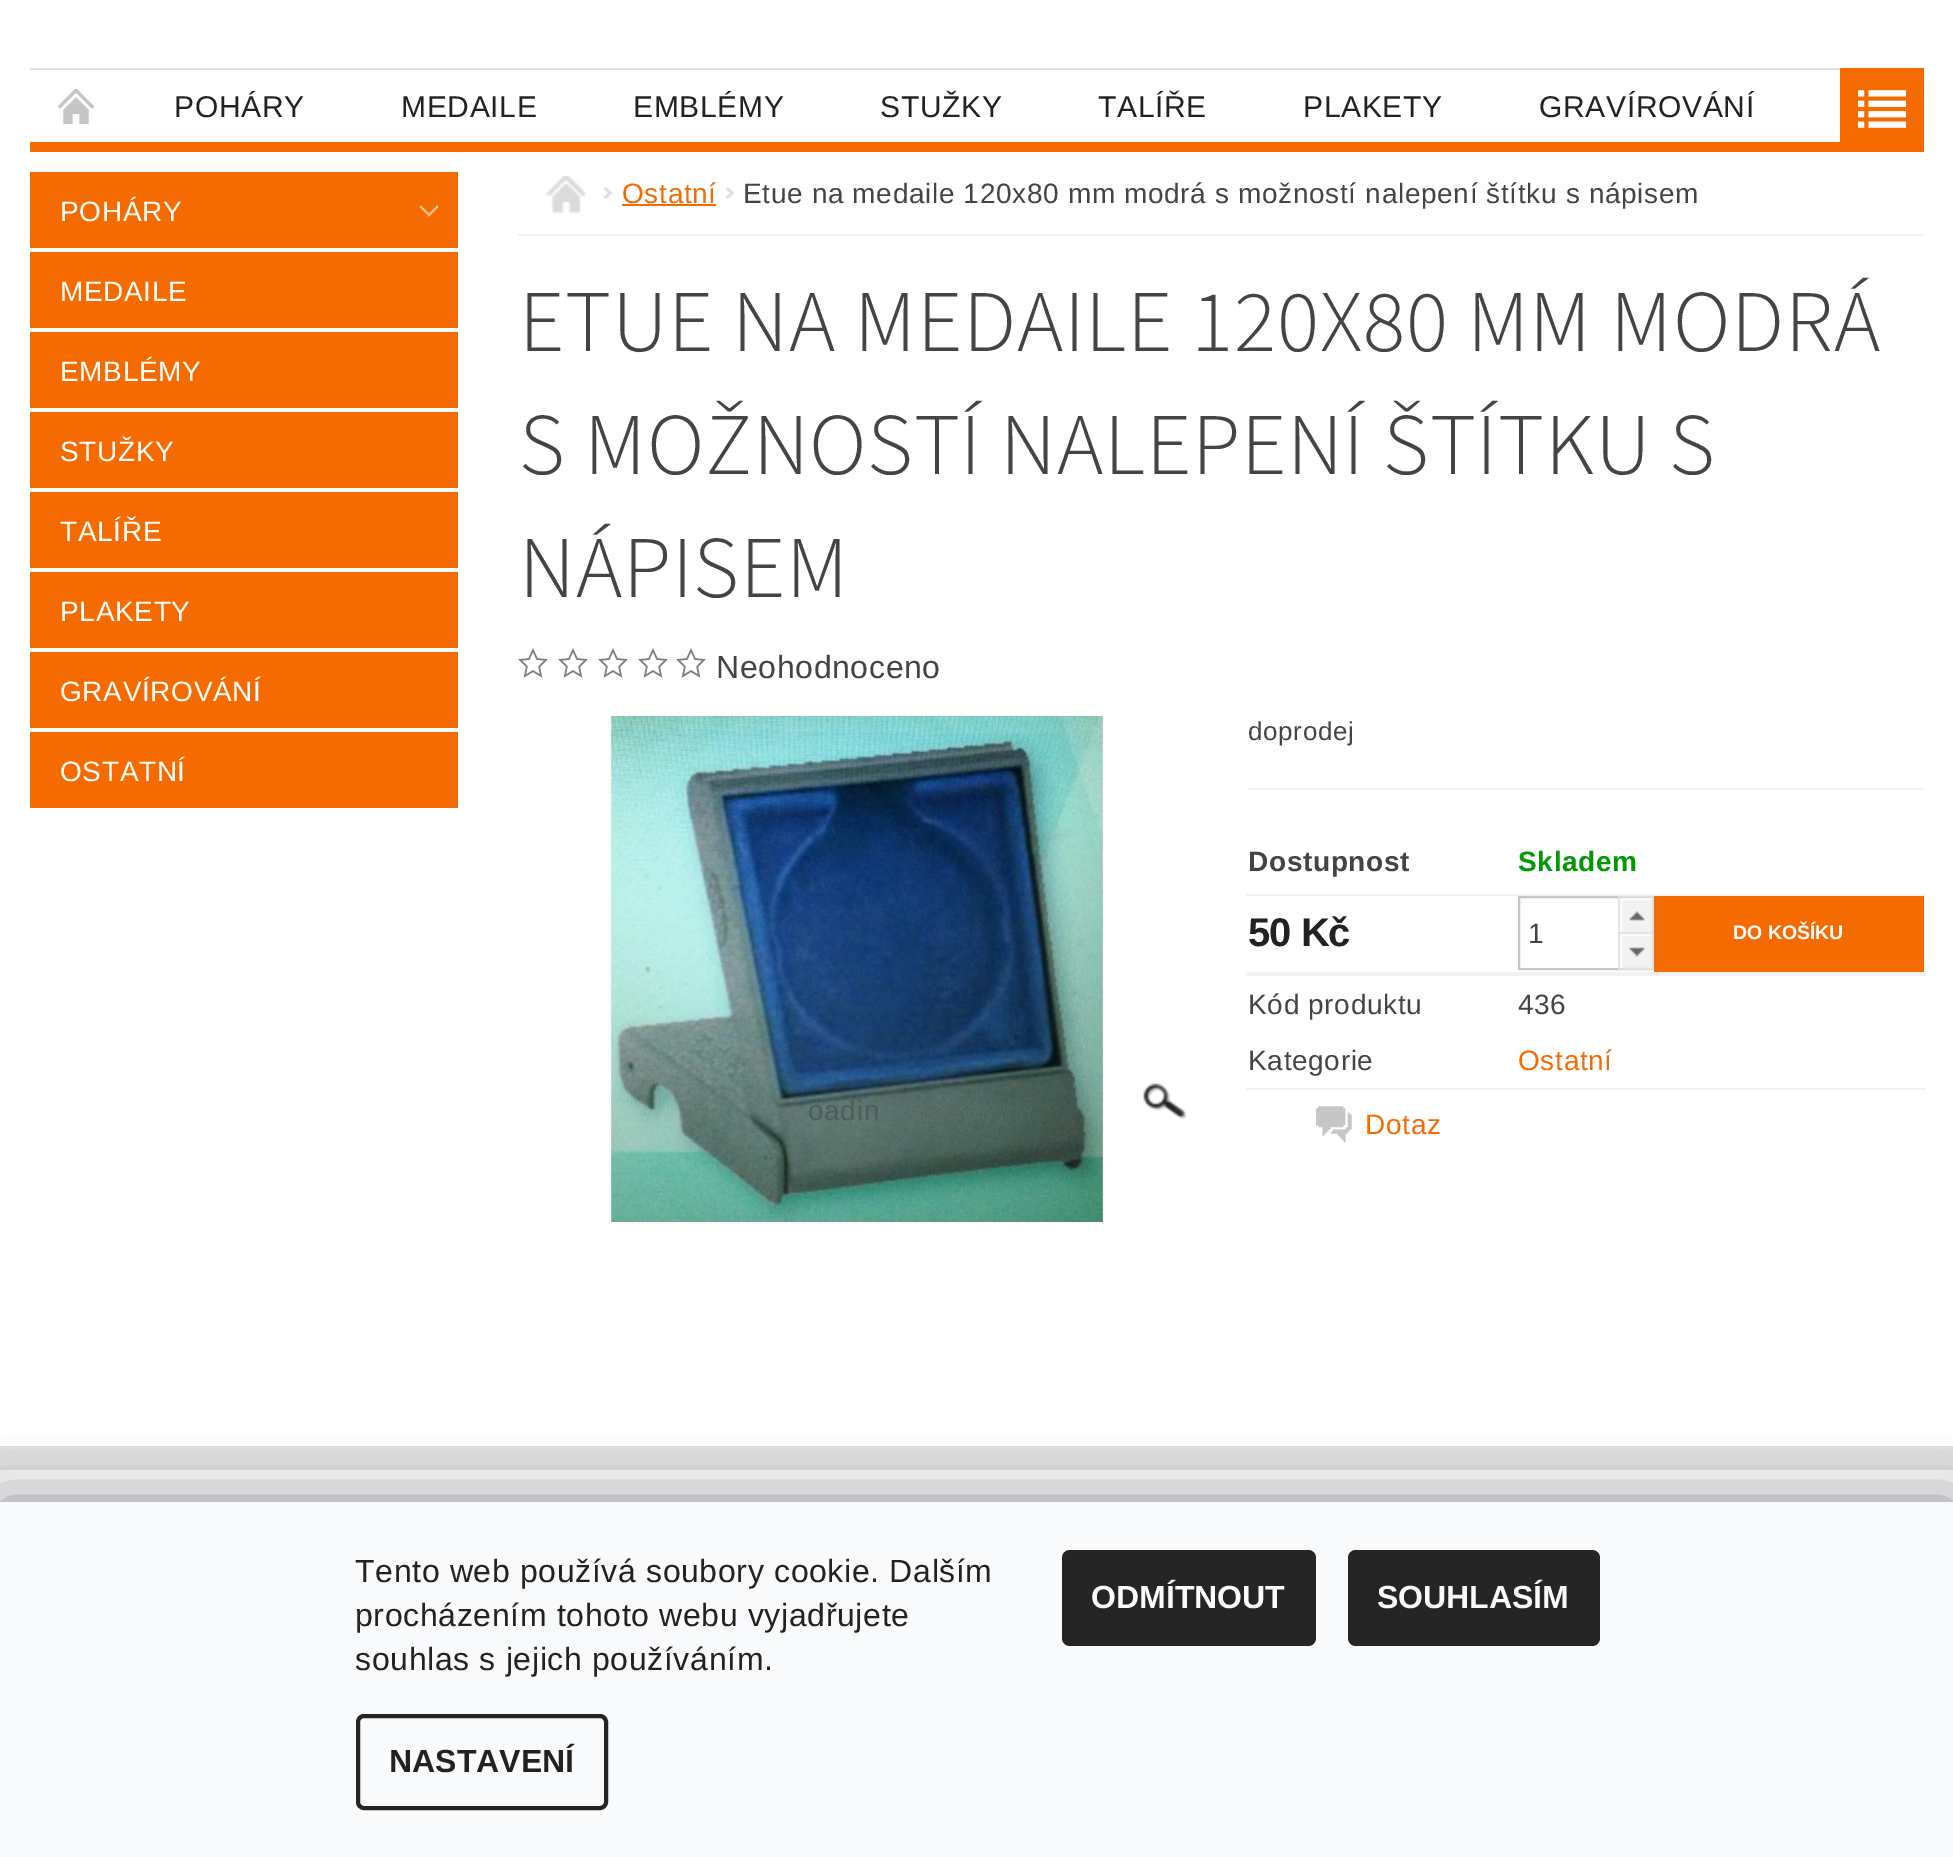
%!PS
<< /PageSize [1953 1857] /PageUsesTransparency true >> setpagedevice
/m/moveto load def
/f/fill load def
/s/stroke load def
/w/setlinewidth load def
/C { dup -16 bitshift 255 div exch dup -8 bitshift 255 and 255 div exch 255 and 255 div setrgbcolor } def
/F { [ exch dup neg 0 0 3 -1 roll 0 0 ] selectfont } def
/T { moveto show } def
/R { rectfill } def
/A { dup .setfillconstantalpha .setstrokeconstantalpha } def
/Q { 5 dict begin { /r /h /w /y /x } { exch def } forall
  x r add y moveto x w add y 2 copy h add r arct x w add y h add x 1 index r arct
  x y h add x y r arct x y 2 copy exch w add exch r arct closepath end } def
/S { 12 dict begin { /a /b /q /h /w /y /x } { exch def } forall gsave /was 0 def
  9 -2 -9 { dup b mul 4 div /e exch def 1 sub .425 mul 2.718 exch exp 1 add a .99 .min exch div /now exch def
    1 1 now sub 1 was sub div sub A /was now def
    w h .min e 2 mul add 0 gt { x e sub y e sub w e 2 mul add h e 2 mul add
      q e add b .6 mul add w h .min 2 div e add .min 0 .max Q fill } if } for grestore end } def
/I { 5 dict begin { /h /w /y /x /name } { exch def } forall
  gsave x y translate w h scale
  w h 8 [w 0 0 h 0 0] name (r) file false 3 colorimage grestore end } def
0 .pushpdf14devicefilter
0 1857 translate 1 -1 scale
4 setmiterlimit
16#FFFFFF C
0 0 1953 1857 R
16#F56B00 C
30 142 1810 10 R
16#E0E0E0 C
30 68 1810 2 R
(1.rgb) 58 88 36 36 I
/LiberationSans-Regular 30 F
16#222222 C
174 117 m .65 0 (POHÁRY) ashow
401 117 m .65 0 (MEDAILE) ashow
633 117 m .65 0 (EMBLÉMY) ashow
880 117 m .65 0 (STUŽKY) ashow
1098 117 m .65 0 (TALÍŘE) ashow
1303 117 m .65 0 (PLAKETY) ashow
1539 117 m .65 0 (GRAVÍROVÁNÍ) ashow
16#F56B00 C
1840 68 84 84 R
(2.rgb) 1858 90 48 38 I
30 172 428 76 R
(3.rgb) 419 205 19 12 I
/LiberationSans-Regular 28 F
16#FFFFFF C
60 221 m .65 0 (POHÁRY) ashow
16#F56B00 C
30 252 428 76 R
16#FFFFFF C
60 301 m .65 0 (MEDAILE) ashow
16#F56B00 C
30 332 428 76 R
16#FFFFFF C
60 381 m .65 0 (EMBLÉMY) ashow
16#F56B00 C
30 412 428 76 R
16#FFFFFF C
60 461 m .65 0 (STUŽKY) ashow
16#F56B00 C
30 492 428 76 R
16#FFFFFF C
60 541 m .65 0 (TALÍŘE) ashow
16#F56B00 C
30 572 428 76 R
16#FFFFFF C
60 621 m .65 0 (PLAKETY) ashow
16#F56B00 C
30 652 428 76 R
16#FFFFFF C
60 701 m .65 0 (GRAVÍROVÁNÍ) ashow
16#F56B00 C
30 732 428 76 R
16#FFFFFF C
60 781 m .65 0 (OSTATNÍ) ashow
16#F2F2F2 C
518 234 1406 2 R
(4.rgb) 546 176 40 38 I
(5.rgb) 604 187 9 12 I
16#F56B00 C
622 203 m .65 0 (Ostatní) ashow
622 204 94 2 R
(5.rgb) 726 187 9 12 I
16#444444 C
743 203 m .65 0 (Etue na medaile 120x80 mm modrá s možností nalepení štítku s nápisem) ashow
/SourceSans3-Light 88 F
519 351 m .65 0 (ETUE NA MEDAILE 120X80 MM MODRÁ) ashow
519 474 m .65 0 (S MOŽNOSTÍ NALEPENÍ ŠTÍTKU S) ashow
519 597 m .65 0 (NÁPISEM) ashow
(6.rgb) 518 648 30 30 I
(6.rgb) 558 648 30 30 I
(6.rgb) 598 648 30 30 I
(6.rgb) 638 648 30 30 I
(6.rgb) 676 648 30 30 I
/LiberationSans-Regular 32 F
716 678 m .65 0 (Neohodnoceno) ashow
(7.rgb) 607 716 499 506 I
/LiberationSans-Regular 28 F
16#505C59 C
808 1120 m .65 0 (oadin) ashow
(8.rgb) 1143 1083 43 37 I
16#F2F2F2 C
1248 788 676 2 R
/LiberationSans-Regular 26 F
16#444444 C
1248 740 m .65 0 (doprodej) ashow
16#F2F2F2 C
1246 894 680 2 R
/LiberationSans-Bold 28 F
16#444444 C
1248 871 m .65 0 (Dostupnost) ashow
16#009901 C
1518 871 m .65 0 (Skladem) ashow
16#F2F2F2 C
1246 972 680 4 R
/LiberationSans-Bold 40 F
16#222222 C
1248 946 m -1 0 (50 Kč) ashow
16#C6C6C6 C
2 w
1519 897 134 72 rectstroke
/LiberationSans-Regular 28 F
16#444444 C
(1) 1528 943 T
(9.rgb) 1618 896 36 36 I
(10.rgb) 1618 932 36 38 I
16#F56B00 C
1654 896 270 76 R
/LiberationSans-Bold 19.5 F
16#FFFFFF C
(DO KOŠÍKU) 1733 939 T
/LiberationSans-Regular 28 F
16#444444 C
1248 1014 m .65 0 (Kód produktu) ashow
1518 1014 m .65 0 (436) ashow
16#F2F2F2 C
1246 1088 680 2 R
16#444444 C
1248 1070 m .65 0 (Kategorie) ashow
16#F56B00 C
1518 1070 m .65 0 (Ostatní) ashow
(11.rgb) 1316 1106 36 37 I
1365 1134 m .65 0 (Dotaz) ashow
16#F8F8F8 C
0 1470 1953 32 R
16#E0E0E0 C
0 1446 1953 24 R
16#1B1939 C
0 1502 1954 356 0 30 .5 S
16#F8FAFB C
0 1502 1953 355 R
/LiberationSans-Regular 32 F
16#222222 C
355 1582 m .65 0 (Tento web používá soubory cookie. Dalším) ashow
355 1626 m .65 0 (procházením tohoto webu vyjadřujete) ashow
355 1670 m .65 0 (souhlas s jejich používáním.) ashow
16#252525 C
4 w
358 1716 248 92 6 Q s
/LiberationSans-Bold 32 F
16#222222 C
(NASTAVENÍ) 389 1772 T
16#252525 C
1062 1550 254 96 8 Q f
16#F8FAFB C
(ODMÍTNOUT) 1091 1608 T
16#252525 C
1348 1550 252 96 8 Q f
16#F8FAFB C
(SOUHLASÍM) 1377 1608 T
.poppdf14devicefilter showpage
